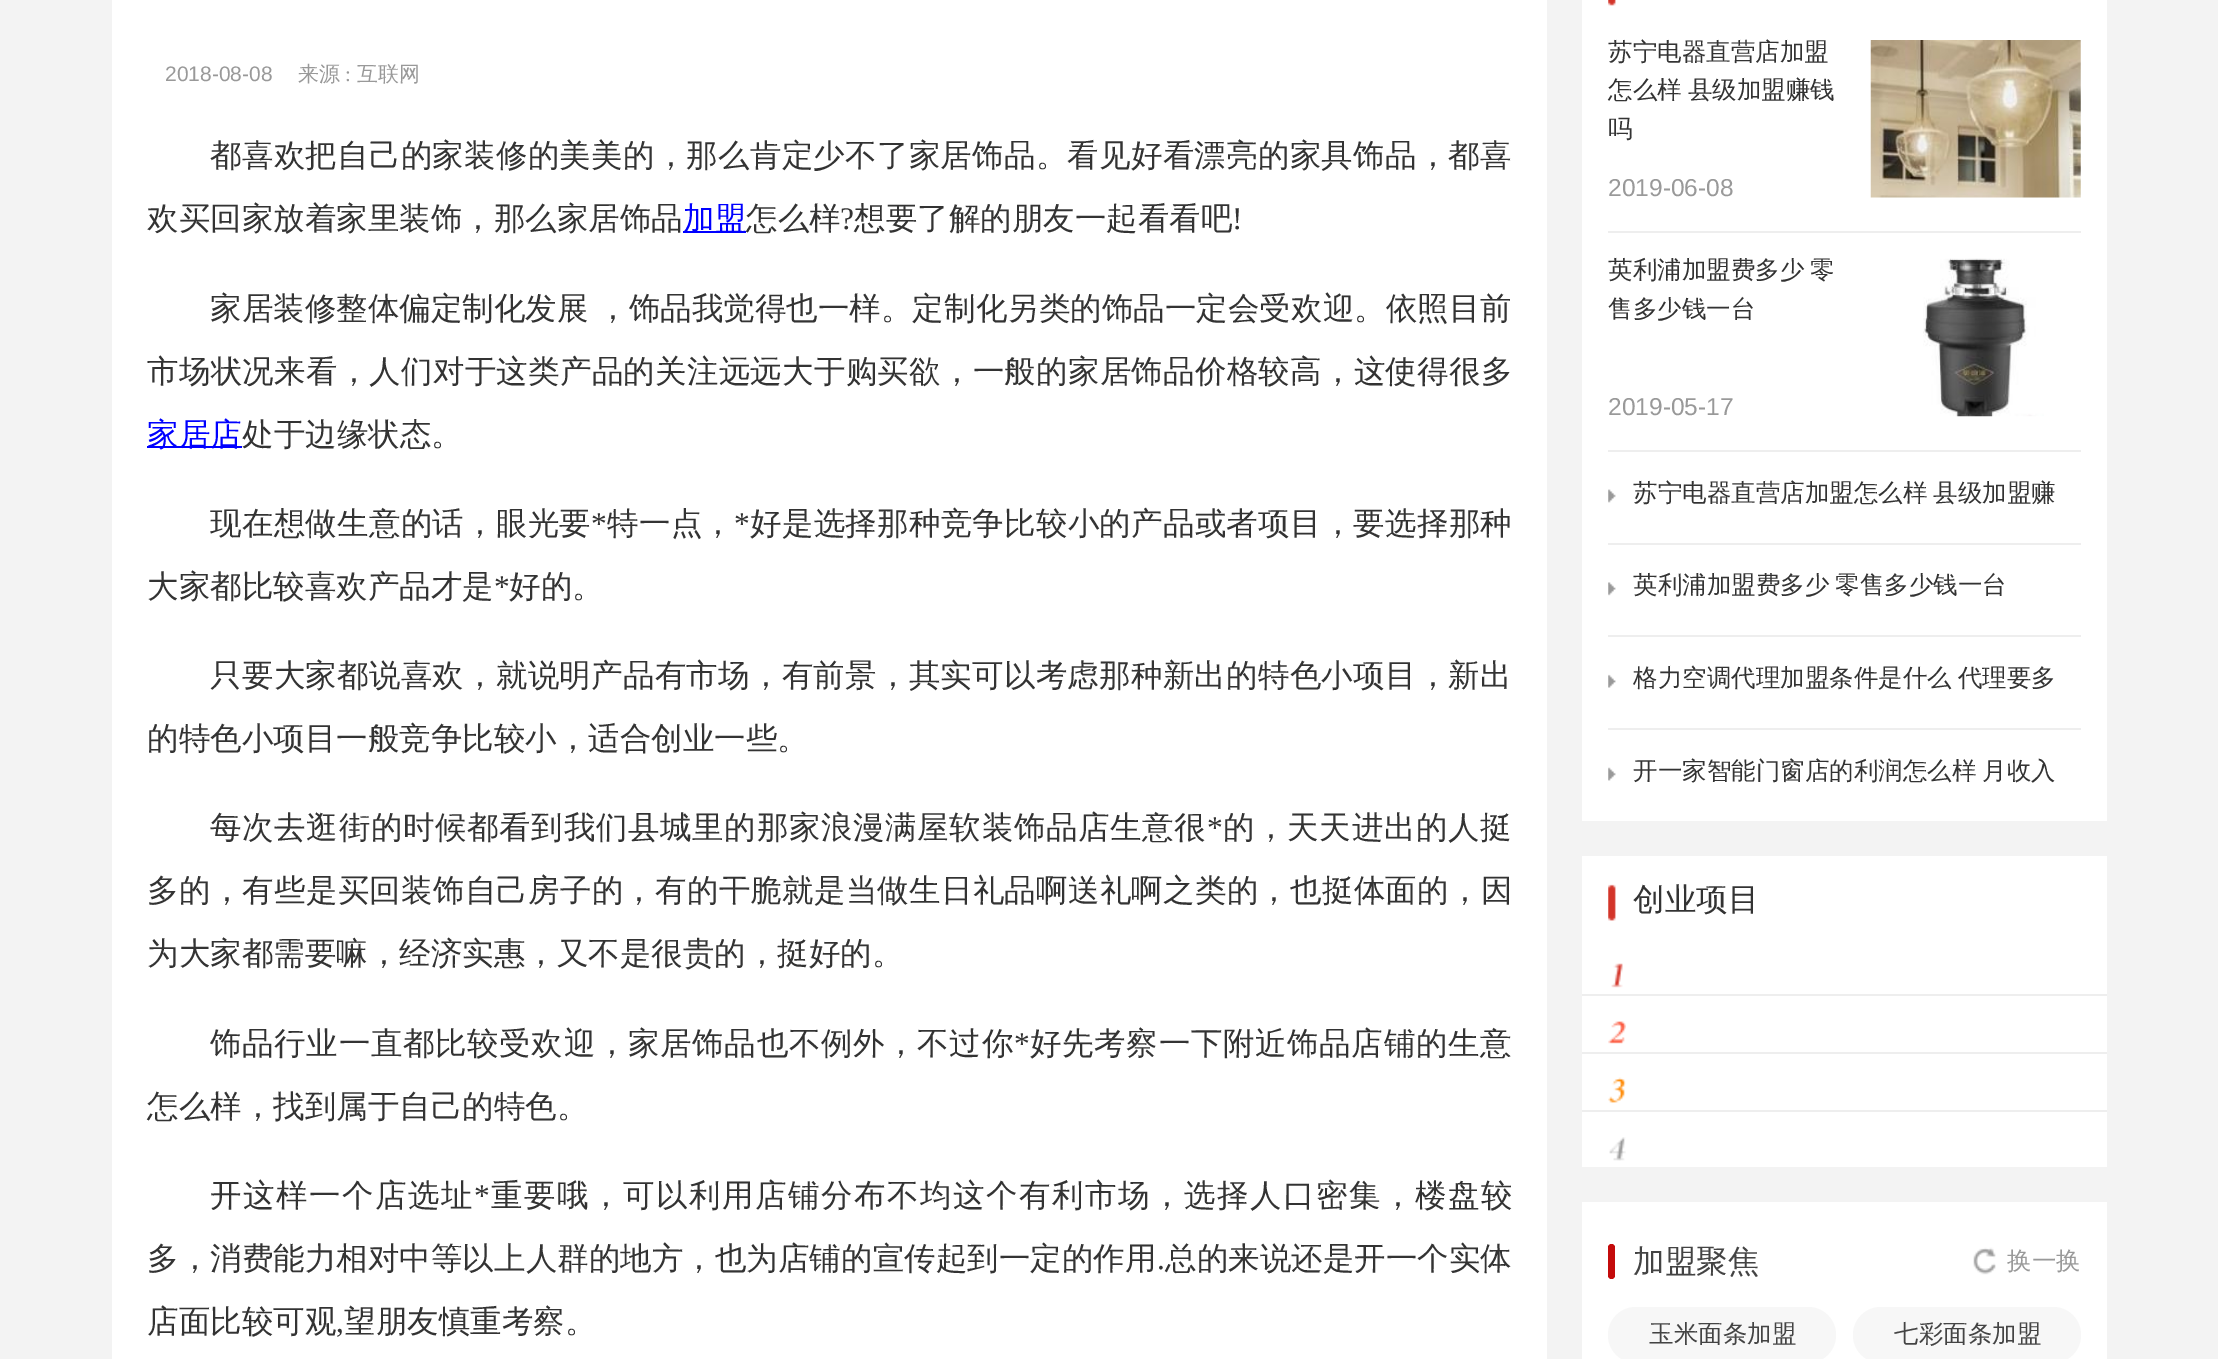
%!PS
<< /PageSize [2218 1359] >> setpagedevice
/m/moveto load def
/f/fill load def
/C { dup -16 bitshift 255 div exch dup -8 bitshift 255 and 255 div exch 255 and 255 div setrgbcolor } def
/F { [ exch dup neg 0 0 3 -1 roll 0 0 ] selectfont } def
/T { moveto show } def
/R { rectfill } def
/Q { 5 dict begin { /r /h /w /y /x } { exch def } forall
  x r add y moveto x w add y 2 copy h add r arct x w add y h add x 1 index r arct
  x y h add x y r arct x y 2 copy exch w add exch r arct closepath end } def
/I { 5 dict begin { /h /w /y /x /name } { exch def } forall
  gsave x y translate w h scale
  w h 8 [w 0 0 h 0 0] name (r) file false 3 colorimage grestore end } def
0 1359 translate 1 -1 scale
4 setmiterlimit
16#F3F3F3 C
0 0 2218 1359 R
16#FFFFFF C
112 0 1435 1359 R
/LiberationSans-Regular 21 F
16#999999 C
(2018-08-08) 165 81 T
/WenQuanYiZenHei-Medium 21 F
(来源) 298 81 T
/LiberationSerif-Regular 21 F
(:) 345 81 T
/WenQuanYiZenHei-Medium 21 F
(互联网) 357 81 T
/WenQuanYiZenHei-Medium 31.5 F
16#333333 C
210 166 m .25 0 (都喜欢把自己的家装修的美美的，那么肯定少不了家居饰品。看见好看漂亮的家具饰品，都喜) ashow
(欢买回家放着家里装饰，那么家居饰品) 147 229 T
16#0000FF C
683 231 63 2 R
(加盟) 683 229 T
16#333333 C
(怎么样) 746 229 T
/LiberationSerif-Regular 31.5 F
(?) 840 229 T
/WenQuanYiZenHei-Medium 31.5 F
(想要了解的朋友一起看看吧) 854 229 T
/LiberationSerif-Regular 31.5 F
(!) 1232 229 T
/WenQuanYiZenHei-Medium 31.5 F
(家居装修整体偏定制化发展) 210 319 T
597 319 m .05 0 (，饰品我觉得也一样。定制化另类的饰品一定会受欢迎。依照目前) ashow
147 382 m .25 0 (市场状况来看，人们对于这类产品的关注远远大于购买欲，一般的家居饰品价格较高，这使得很多) ashow
16#0000FF C
147 446 95 2 R
(家居店) 147 445 T
16#333333 C
(处于边缘状态。) 242 445 T
210 534 m .25 0 (现在想做生意的话，眼光要) ashow
/LiberationSerif-Regular 31.5 F
591 534 m .25 0 (*) ashow
/WenQuanYiZenHei-Medium 31.5 F
607 534 m .25 0 (特一点，) ashow
/LiberationSerif-Regular 31.5 F
734 534 m .25 0 (*) ashow
/WenQuanYiZenHei-Medium 31.5 F
750 534 m .25 0 (好是选择那种竞争比较小的产品或者项目，要选择那种) ashow
(大家都比较喜欢产品才是) 147 597 T
/LiberationSerif-Regular 31.5 F
(*) 494 597 T
/WenQuanYiZenHei-Medium 31.5 F
(好的。) 509 597 T
210 686 m .25 0 (只要大家都说喜欢，就说明产品有市场，有前景，其实可以考虑那种新出的特色小项目，新出) ashow
(的特色小项目一般竞争比较小，适合创业一些。) 147 749 T
210 838 m .65 0 (每次去逛街的时候都看到我们县城里的那家浪漫满屋软装饰品店生意很) ashow
/LiberationSerif-Regular 31.5 F
1207 838 m .65 0 (*) ashow
/WenQuanYiZenHei-Medium 31.5 F
1223 838 m .65 0 (的，天天进出的人挺) ashow
147 901 m .25 0 (多的，有些是买回装饰自己房子的，有的干脆就是当做生日礼品啊送礼啊之类的，也挺体面的，因) ashow
(为大家都需要嘛，经济实惠，又不是很贵的，挺好的。) 147 964 T
210 1054 m .65 0 (饰品行业一直都比较受欢迎，家居饰品也不例外，不过你) ashow
/LiberationSerif-Regular 31.5 F
1014 1054 m .65 0 (*) ashow
/WenQuanYiZenHei-Medium 31.5 F
1030 1054 m .65 0 (好先考察一下附近饰品店铺的生意) ashow
(怎么样，找到属于自己的特色。) 147 1117 T
210 1206 m 1.5 0 (开这样一个店选址) ashow
/LiberationSerif-Regular 31.5 F
474 1206 m 1.5 0 (*) ashow
/WenQuanYiZenHei-Medium 31.5 F
491 1206 m 1.5 0 (重要哦，可以利用店铺分布不均这个有利市场，选择人口密集，楼盘较) ashow
147 1269 m .05 0 (多，消费能力相对中等以上人群的地方，也为店铺的宣传起到一定的作用) ashow
/LiberationSerif-Regular 31.5 F
1157 1269 m .05 0 (.) ashow
/WenQuanYiZenHei-Medium 31.5 F
1165 1269 m .05 0 (总的来说还是开一个实体) ashow
(店面比较可观) 147 1332 T
/LiberationSerif-Regular 31.5 F
(,) 336 1332 T
/WenQuanYiZenHei-Medium 31.5 F
(望朋友慎重考察。) 344 1332 T
16#FFFFFF C
1582 0 525 821 R
(1.rgb) 1608 0 8 6 I
16#EEEEEE C
1608 231 473 2 R
/WenQuanYiZenHei-Medium 24.5 F
16#333333 C
(苏宁电器直营店加盟) 1608 60 T
1608 98 m -1 0 32 (怎么样 县级加盟赚钱) widthshow
(吗) 1608 137 T
/LiberationSans-Regular 24.5 F
16#999999 C
(2019-06-08) 1608 196 T
(2.rgb) 1870 40 211 158 I
16#EEEEEE C
1608 450 473 2 R
/WenQuanYiZenHei-Medium 24.5 F
16#333333 C
1608 278 m -1 0 32 (英利浦加盟费多少 零) widthshow
(售多少钱一台) 1608 317 T
/LiberationSans-Regular 24.5 F
16#999999 C
(2019-05-17) 1608 415 T
(3.rgb) 1923 258 121 159 I
16#EEEEEE C
1608 543 473 2 R
(4.rgb) 1608 489 8 14 I
/WenQuanYiZenHei-Medium 24.5 F
16#333333 C
1633 501 m -1 0 32 (苏宁电器直营店加盟怎么样 县级加盟赚) widthshow
16#EEEEEE C
1608 635 473 2 R
(5.rgb) 1608 582 8 14 I
16#333333 C
1633 593 m -1 0 32 (英利浦加盟费多少 零售多少钱一台) widthshow
16#EEEEEE C
1608 728 473 2 R
(6.rgb) 1608 674 8 14 I
16#333333 C
1633 686 m -1 0 32 (格力空调代理加盟条件是什么 代理要多) widthshow
(7.rgb) 1608 767 8 14 I
1633 779 m -1 0 32 (开一家智能门窗店的利润怎么样 月收入) widthshow
16#FFFFFF C
1582 856 525 311 R
(8.rgb) 1608 884 8 37 I
/WenQuanYiZenHei-Medium 31.5 F
16#333333 C
(创业项目) 1633 910 T
16#EEEEEE C
1582 994 525 2 R
(9.rgb) 1611 963 12 25 I
1582 1052 525 2 R
(10.rgb) 1608 1021 18 23 I
1582 1110 525 2 R
(11.rgb) 1608 1077 18 26 I
(12.rgb) 1609 1137 17 24 I
16#FFFFFF C
1582 1202 525 157 R
16#C40B0B C
1608 1244 7 35 3.5 Q f
16#444444 C
(加盟聚焦) 1633 1272 T
(13.rgb) 1973 1247 23 28 I
/WenQuanYiZenHei-Medium 24.5 F
16#999999 C
(换一换) 2007 1269 T
16#F7F7F7 C
1608 1307 228 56 28 Q f
16#444444 C
(玉米面条加盟) 1649 1342 T
16#F7F7F7 C
1853 1307 228 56 28 Q f
16#444444 C
(七彩面条加盟) 1894 1342 T
showpage
